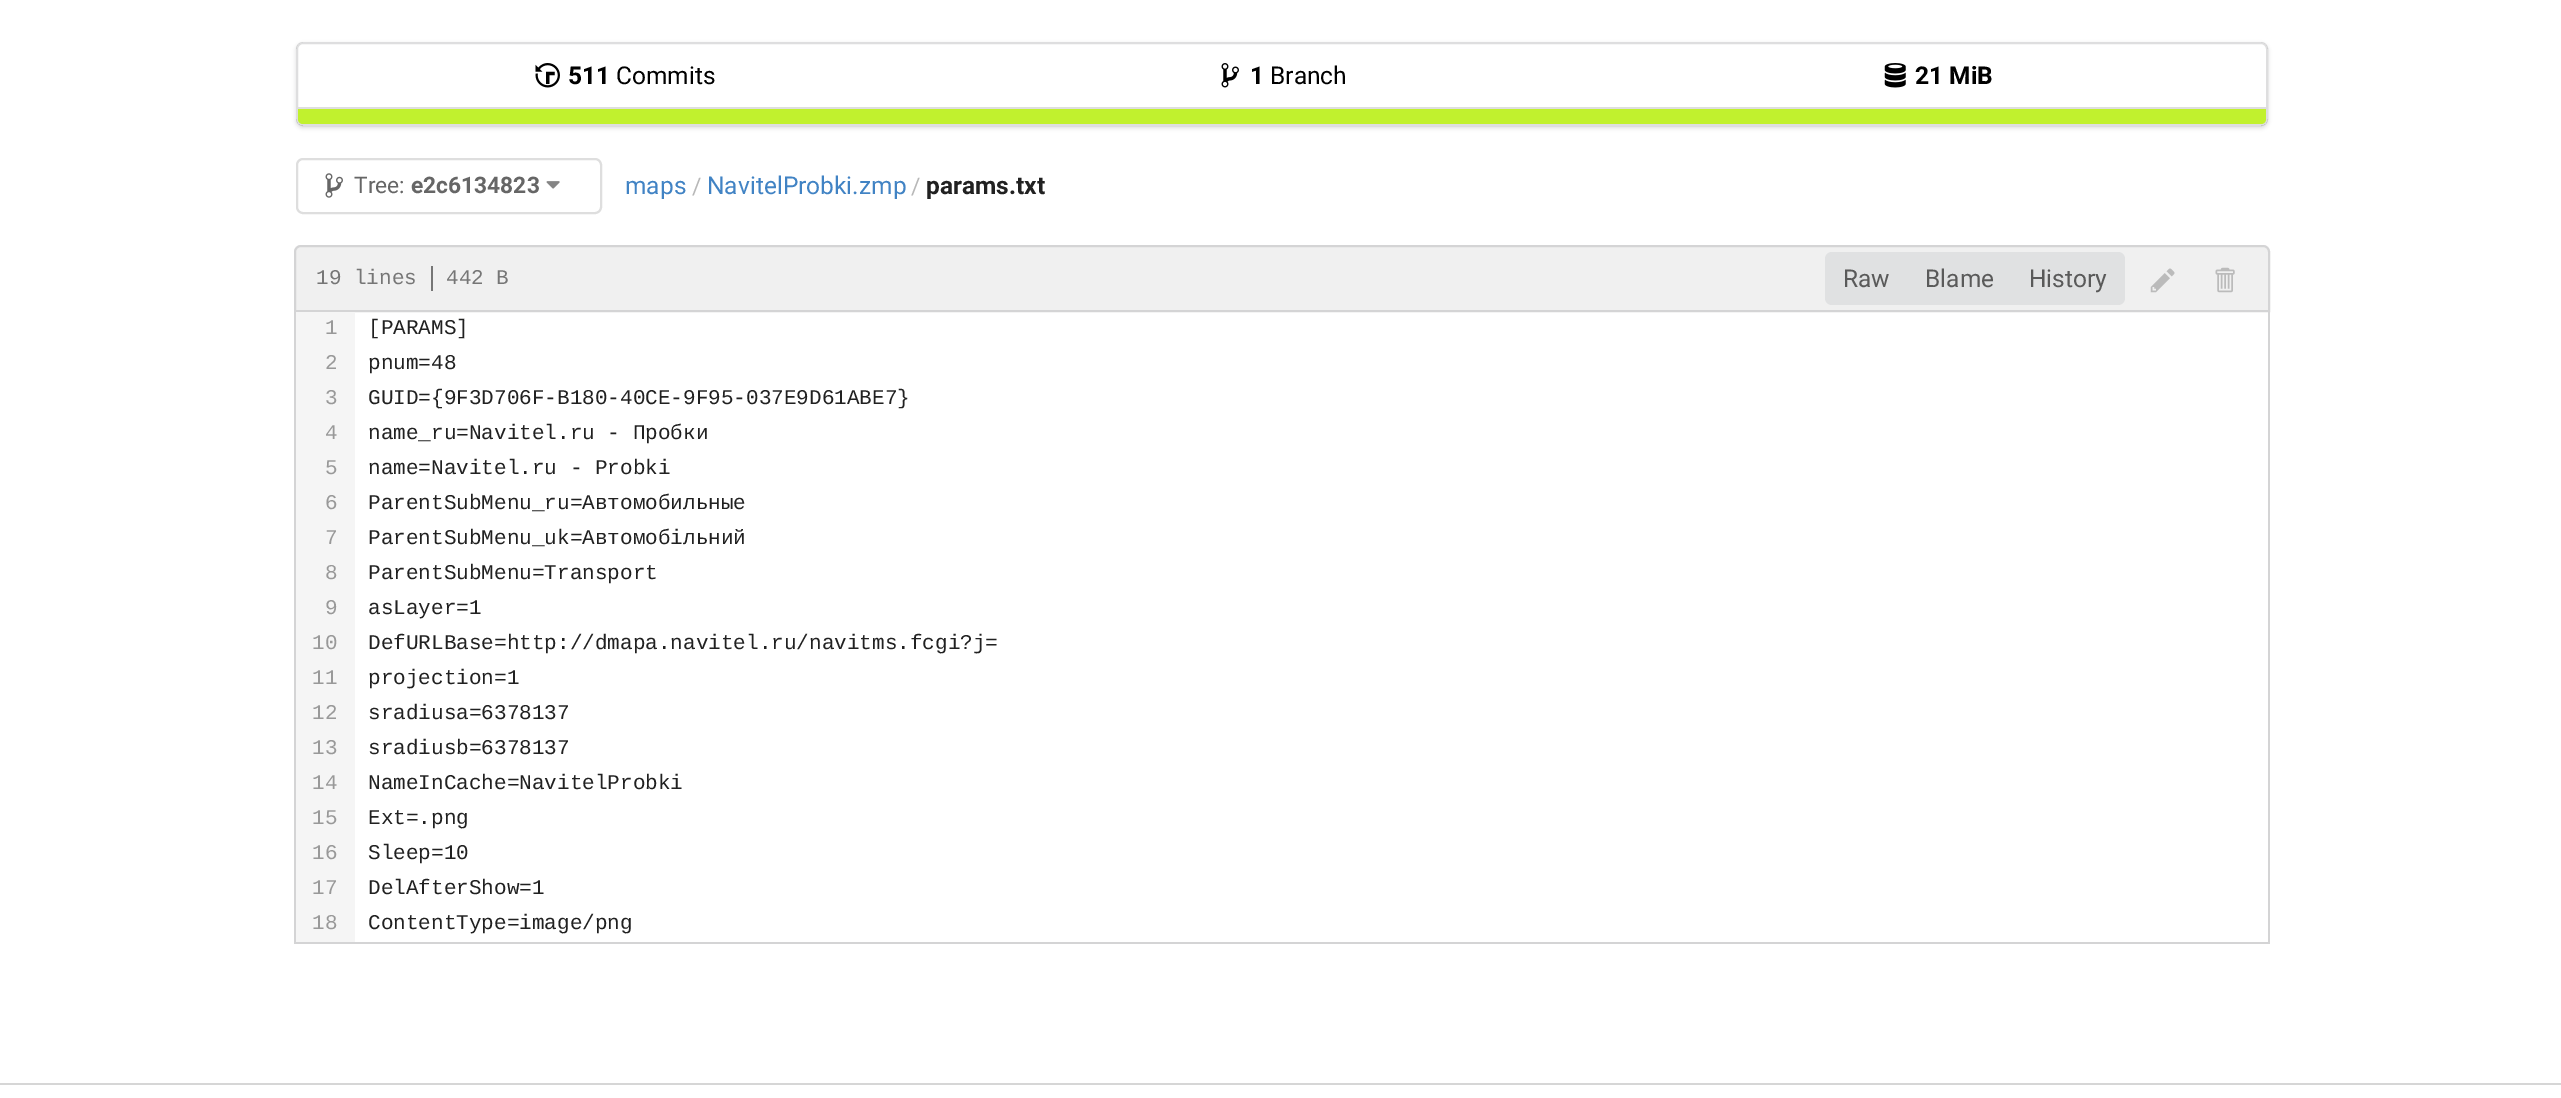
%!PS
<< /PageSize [2561 1098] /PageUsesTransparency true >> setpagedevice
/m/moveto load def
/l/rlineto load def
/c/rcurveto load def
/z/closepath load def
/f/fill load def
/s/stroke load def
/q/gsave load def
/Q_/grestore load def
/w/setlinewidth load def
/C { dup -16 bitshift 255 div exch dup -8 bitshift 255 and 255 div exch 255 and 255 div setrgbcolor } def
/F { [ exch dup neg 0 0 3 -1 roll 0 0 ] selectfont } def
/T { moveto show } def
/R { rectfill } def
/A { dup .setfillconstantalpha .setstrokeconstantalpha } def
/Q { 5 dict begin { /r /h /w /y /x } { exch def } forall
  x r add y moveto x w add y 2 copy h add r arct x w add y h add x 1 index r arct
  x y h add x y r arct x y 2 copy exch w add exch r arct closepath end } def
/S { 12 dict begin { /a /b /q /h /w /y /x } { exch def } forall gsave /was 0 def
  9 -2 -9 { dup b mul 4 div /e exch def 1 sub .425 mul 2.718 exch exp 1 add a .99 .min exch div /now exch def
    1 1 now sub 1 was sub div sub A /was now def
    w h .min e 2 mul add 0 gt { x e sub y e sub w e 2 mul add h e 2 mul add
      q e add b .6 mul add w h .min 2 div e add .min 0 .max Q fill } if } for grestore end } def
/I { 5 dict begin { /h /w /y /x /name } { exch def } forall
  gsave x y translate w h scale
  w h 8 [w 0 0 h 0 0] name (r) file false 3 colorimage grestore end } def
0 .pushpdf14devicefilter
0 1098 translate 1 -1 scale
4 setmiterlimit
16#FFFFFF C
0 0 2561 1098 R
q
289 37 m 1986 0 l 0 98 l -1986 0 l z 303 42 m 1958 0 l 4 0 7 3 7 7 c 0 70 l 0 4 -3 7 -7 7 c -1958 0 l -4 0 -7 -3 -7 -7 c 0 -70 l 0 -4 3 -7 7 -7 c z eoclip newpath
16#222426 C
296 44 1972 84 7 2 .15 S
Q_
0.15 A
16#222426 C
2 w
297 43 1970 82 6 Q s
1 A
(1.rgb) 535 63 25 25 I
/Roboto-Bold 24.5 F
16#000000 C
(511) 568 84 T
/Roboto-Regular 24.5 F
(Commits) 616 84 T
(2.rgb) 1221 63 18 25 I
/Roboto-Bold 24.5 F
(1) 1250 84 T
/Roboto-Regular 24.5 F
(Branch) 1270 84 T
(3.rgb) 1884 63 22 25 I
/Roboto-Bold 24.5 F
(21 MiB) 1915 84 T
16#DEDEDE C
298 107 1968 2 R
16#C1F12E C
298 109 m 1968 0 l 0 10 l 0 3 -2 5 -5 5 c -1958 0 l -3 0 -5 -2 -5 -5 c z f
16#DEDEDE C
297 159 304 54 6 Q s
(4.rgb) 325 173 18 25 I
/Roboto-Regular 22.75 F
16#666666 C
(Tree:) 354 193 T
/Roboto-Bold 22.75 F
(e2c6134823) 411 193 T
(5.rgb) 546 181 14 8 I
/Roboto-Regular 24.5 F
16#4183C4 C
(maps) 625 194 T
/Roboto-Regular 22.75 F
16#B8B8B8 C
(/) 692 194 T
/Roboto-Regular 24.5 F
16#4183C4 C
(NavitelProbki.zmp) 707 194 T
/Roboto-Regular 22.75 F
16#B8B8B8 C
(/) 911 194 T
/Roboto-Bold 24.5 F
16#212121 C
(params.txt) 926 194 T
16#F0F0F0 C
301 246 m 1962 0 l 3.5 0 6 2.5 6 6 c 0 59 l -1974 0 l 0 -59 l 0 -3.5 2.5 -6 6 -6 c z q f Q_
16#D4D4D5 C
s
/LiberationMono-Regular 21 F
16#767676 C
(19 lines) 316 284 T
431 266 2 25 R
(442 B) 446 284 T
16#E0E1E2 C
1832 252 m 76 0 l 0 53 l -76 0 l -4 0 -7 -3 -7 -7 c 0 -39 l 0 -4 3 -7 7 -7 c z f
/Roboto-Regular 24.5 F
16#5A5A5A C
(Raw) 1843 287 T
16#E0E1E2 C
1908 252 103 53 R
16#5A5A5A C
(Blame) 1925 287 T
16#E0E1E2 C
2011 252 m 107 0 l 4 0 7 3 7 7 c 0 39 l 0 4 -3 7 -7 7 c -107 0 l z f
16#5A5A5A C
(History) 2029 287 T
(6.rgb) 2150 268 25 25 I
(7.rgb) 2215 267 20 26 I
16#D4D4D5 C
2268 312 2 631 R
294 942 1976 2 R
294 312 2 631 R
16#F5F5F5 C
296 312 59 630 R
/LiberationMono-Regular 21 F
16#999999 C
(1) 325 334 T
(2) 325 369 T
(3) 325 404 T
(4) 325 439 T
(5) 325 474 T
(6) 325 509 T
(7) 325 544 T
(8) 325 579 T
(9) 325 614 T
(10) 312 649 T
(11) 312 684 T
(12) 312 719 T
(13) 312 754 T
(14) 312 789 T
(15) 312 824 T
(16) 312 859 T
(17) 312 894 T
(18) 312 929 T
16#212121 C
([PARAMS]) 368 334 T
(pnum=48) 368 369 T
(GUID={9F3D706F-B180-40CE-9F95-037E9D61ABE7}) 368 404 T
(name_ru=Navitel.ru - Пробки) 368 439 T
(name=Navitel.ru - Probki) 368 474 T
(ParentSubMenu_ru=Автомобильные) 368 509 T
(ParentSubMenu_uk=Автомобільний) 368 544 T
(ParentSubMenu=Transport) 368 579 T
(asLayer=1) 368 614 T
(DefURLBase=http://dmapa.navitel.ru/navitms.fcgi?j=) 368 649 T
(projection=1) 368 684 T
(sradiusa=6378137) 368 719 T
(sradiusb=6378137) 368 754 T
(NameInCache=NavitelProbki) 368 789 T
(Ext=.png) 368 824 T
(Sleep=10) 368 859 T
(DelAfterShow=1) 368 894 T
(ContentType=image/png) 368 929 T
16#D6D6D6 C
0 1083 2561 2 R
.poppdf14devicefilter showpage
